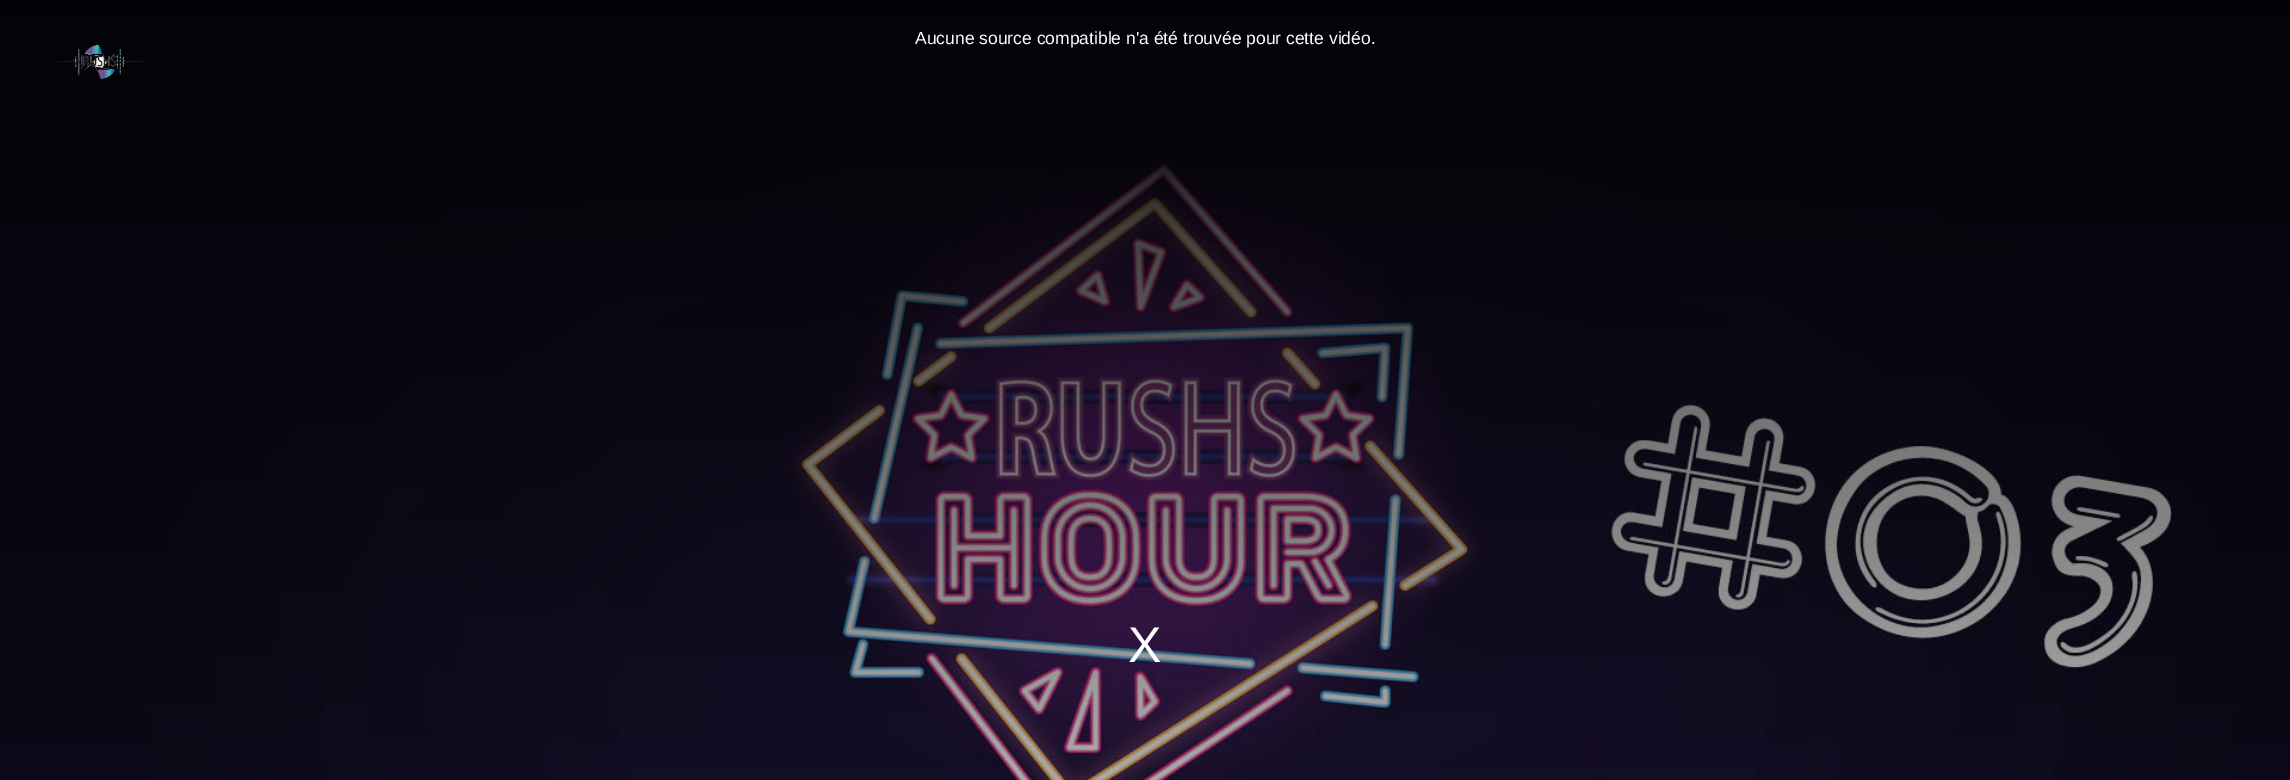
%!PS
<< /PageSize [2290 780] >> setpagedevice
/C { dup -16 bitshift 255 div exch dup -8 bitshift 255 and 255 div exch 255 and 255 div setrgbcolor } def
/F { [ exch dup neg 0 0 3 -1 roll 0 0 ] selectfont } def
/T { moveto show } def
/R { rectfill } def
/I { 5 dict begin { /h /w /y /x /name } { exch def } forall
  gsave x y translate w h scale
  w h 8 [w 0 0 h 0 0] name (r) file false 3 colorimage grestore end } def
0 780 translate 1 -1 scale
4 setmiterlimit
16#FFFFFF C
0 0 2290 780 R
(1.rgb) 0 0 2290 780 I
(2.rgb) 56 45 89 34 I
/LiberationSans-Regular 17.5 F
(Aucune source compatible n'a été trouvée pour cette vidéo.) 915 44 T
/LiberationSans-Regular 50 F
(X) 1128 662 T
showpage
